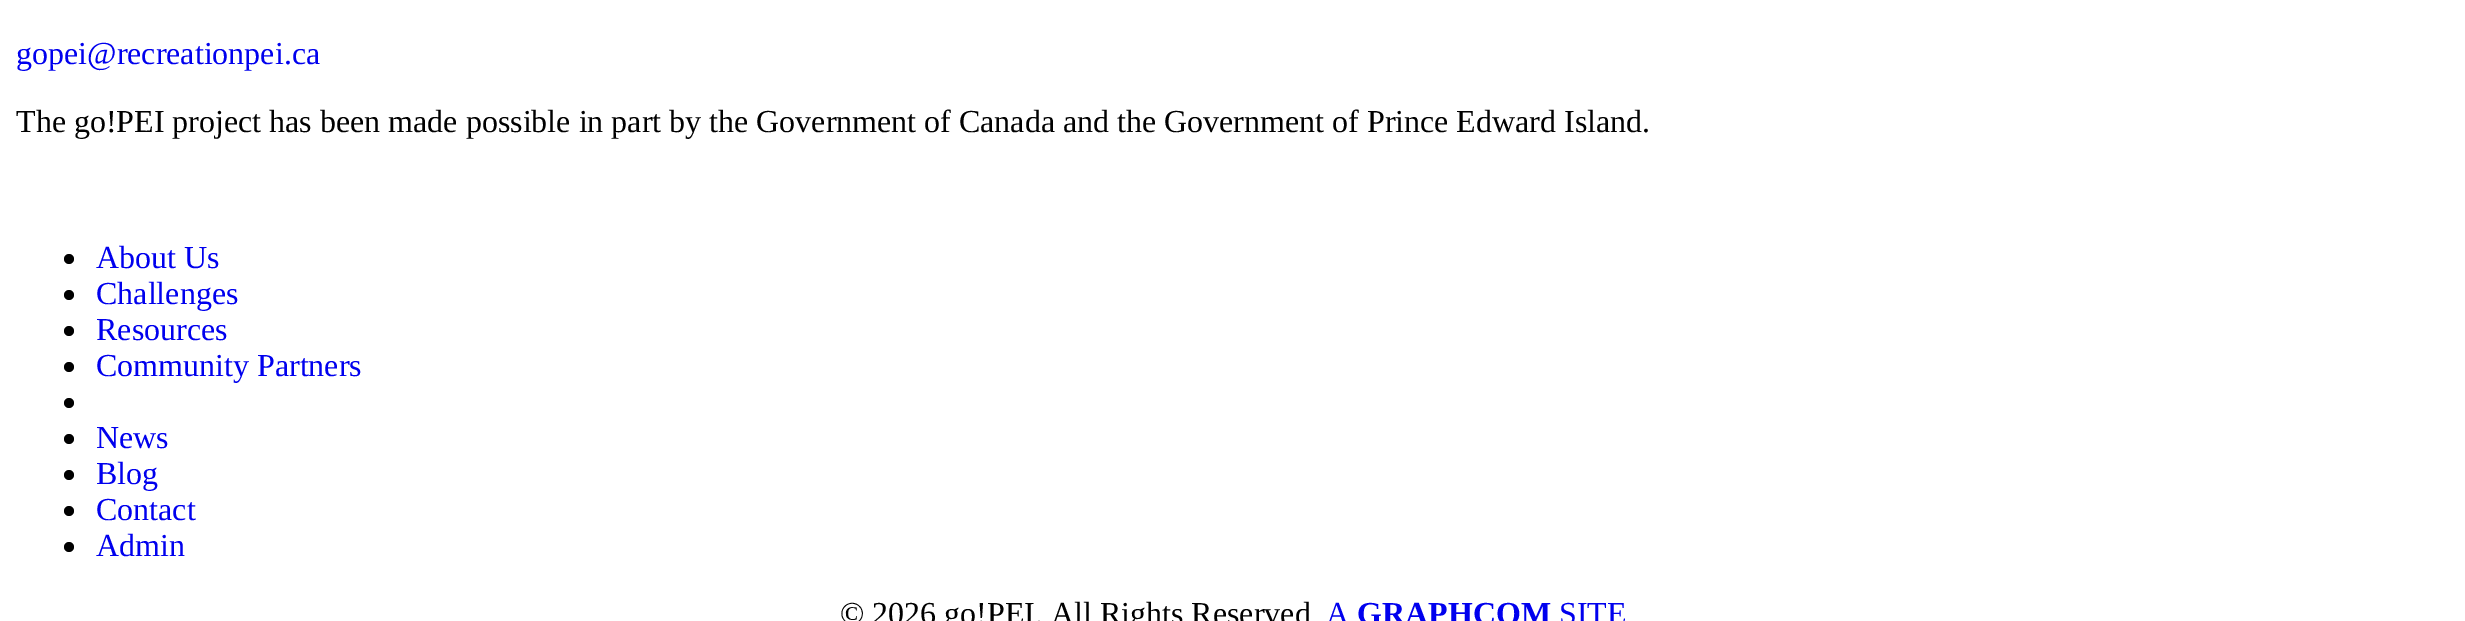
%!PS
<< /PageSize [2465 621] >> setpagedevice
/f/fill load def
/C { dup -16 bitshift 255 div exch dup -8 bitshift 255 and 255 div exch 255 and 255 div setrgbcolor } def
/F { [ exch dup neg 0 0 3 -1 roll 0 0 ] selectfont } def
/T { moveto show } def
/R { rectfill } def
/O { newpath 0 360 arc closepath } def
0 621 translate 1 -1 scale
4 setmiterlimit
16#FFFFFF C
0 0 2465 621 R
/LiberationSerif-Regular 32 F
16#0000EE C
(gopei@recreationpei.ca) 16 64 T
16#000000 C
(The go!PEI project has been made possible in part by the Government of Canada and the Government of Prince Edward Island.) 16 132 T
69 259 5 O f
16#0000EE C
(About Us) 96 268 T
16#000000 C
69 295 5 O f
16#0000EE C
(Challenges) 96 304 T
16#000000 C
69 331 5 O f
16#0000EE C
(Resources) 96 340 T
16#000000 C
69 367 5 O f
16#0000EE C
(Community Partners) 96 376 T
16#000000 C
69 403 5 O f
69 439 5 O f
16#0000EE C
(News) 96 448 T
16#000000 C
69 475 5 O f
16#0000EE C
(Blog) 96 484 T
16#000000 C
69 511 5 O f
16#0000EE C
(Contact) 96 520 T
16#000000 C
69 547 5 O f
16#0000EE C
(Admin) 96 556 T
16#000000 C
(© 2026 go!PEI. All Rights Reserved) 840 624 T
16#0000EE C
(A) 1326 624 T
/LiberationSerif-Bold 32 F
(GRAPHCOM) 1357 624 T
/LiberationSerif-Regular 32 F
(SITE) 1559 624 T
showpage
